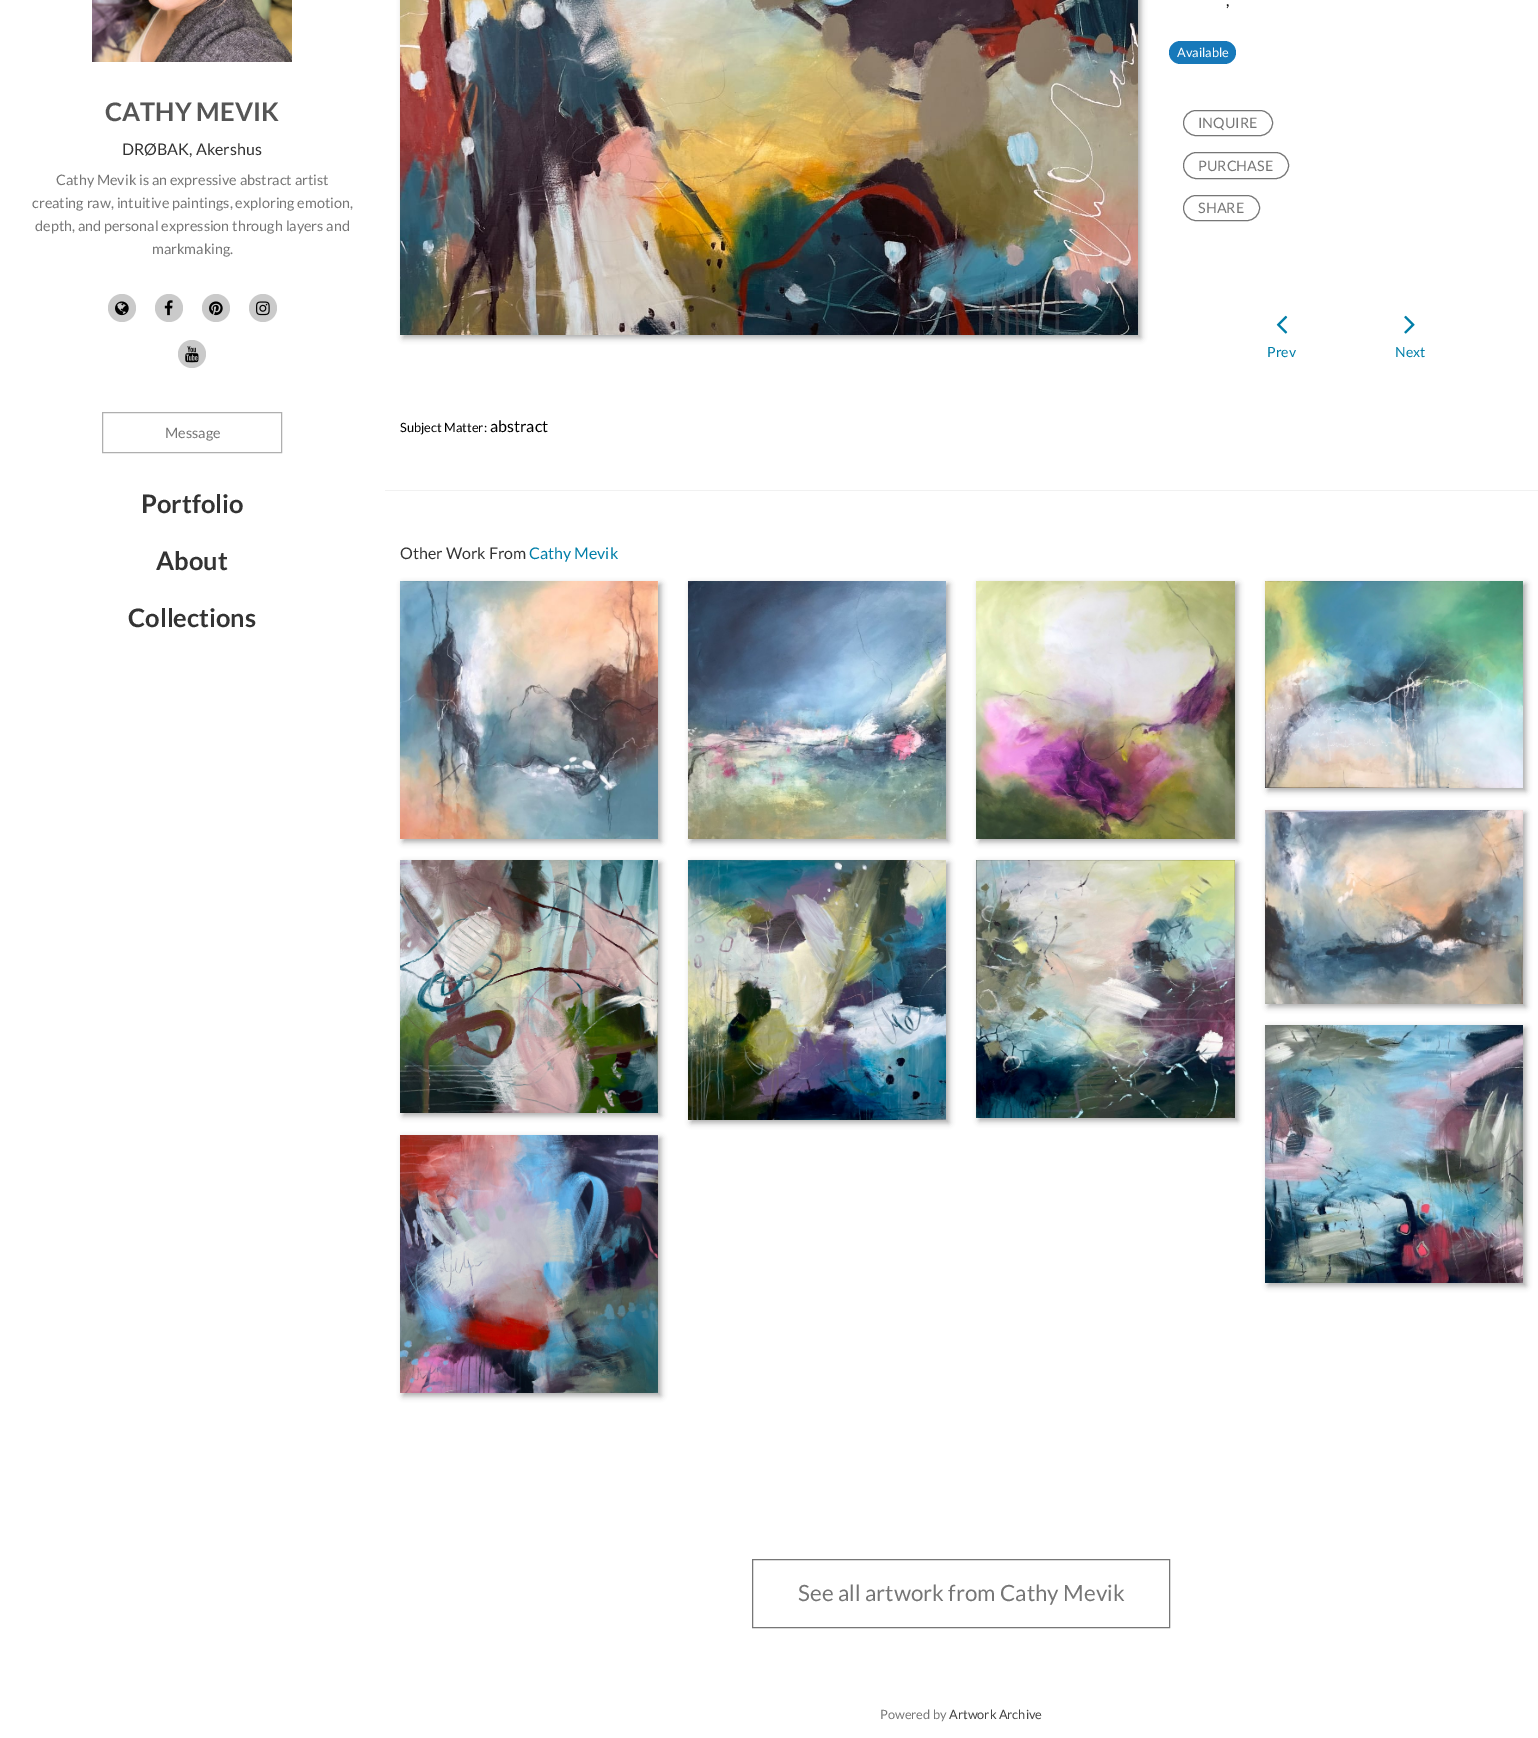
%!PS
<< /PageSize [1538 1738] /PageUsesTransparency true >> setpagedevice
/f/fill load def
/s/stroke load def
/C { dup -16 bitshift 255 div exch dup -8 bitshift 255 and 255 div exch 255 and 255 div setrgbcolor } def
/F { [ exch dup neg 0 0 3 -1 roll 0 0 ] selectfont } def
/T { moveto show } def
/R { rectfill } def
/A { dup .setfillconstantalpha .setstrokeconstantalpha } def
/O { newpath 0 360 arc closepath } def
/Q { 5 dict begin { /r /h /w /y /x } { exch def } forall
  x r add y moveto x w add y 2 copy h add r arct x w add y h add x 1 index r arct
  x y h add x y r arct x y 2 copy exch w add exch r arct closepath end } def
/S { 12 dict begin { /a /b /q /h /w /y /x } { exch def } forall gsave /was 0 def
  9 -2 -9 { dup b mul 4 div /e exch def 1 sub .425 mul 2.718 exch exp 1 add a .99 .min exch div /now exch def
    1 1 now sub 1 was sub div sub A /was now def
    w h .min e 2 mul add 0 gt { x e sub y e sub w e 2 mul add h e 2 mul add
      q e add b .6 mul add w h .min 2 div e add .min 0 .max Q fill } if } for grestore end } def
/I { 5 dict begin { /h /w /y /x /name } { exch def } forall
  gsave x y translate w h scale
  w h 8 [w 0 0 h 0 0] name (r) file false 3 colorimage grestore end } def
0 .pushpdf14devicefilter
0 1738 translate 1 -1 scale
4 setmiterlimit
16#FFFFFF C
0 0 1538 1738 R
(1.rgb) 92 0 200 62 I
/Lato-Bold 25.5 F
16#555555 C
(CATHY MEVIK) 105 121 T
/Lato-Regular 16 F
16#333333 C
(DRØBAK, Akershus) 122 155 T
/Lato-Regular 14.4 F
16#767676 C
(Cathy Mevik is an expressive abstract artist) 56 185 T
(creating raw, intuitive paintings, exploring emotion,) 32 208 T
(depth, and personal expression through layers and) 35 231 T
(markmaking.) 152 254 T
16#CACACA C
122 308 14 O f
(2.rgb) 115 301 14 15 I
169 308 14 O f
(3.rgb) 164 300 9 16 I
216 308 14 O f
(4.rgb) 209 301 14 15 I
263 308 14 O f
(5.rgb) 256 301 14 15 I
192 354 14 O f
(6.rgb) 185 346 14 17 I
16#AFAFAF C
102.5 412.5 179 40 rectstroke
16#767676 C
(Message) 165 438 T
/Lato-Bold 25.5 F
16#333333 C
(Portfolio) 141 513 T
(About) 156 570 T
(Collections) 128 627 T
16#AAAAAA C
403 -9 738 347 0 3 1 S
(7.rgb) 400 0 738 335 I
/Lato-Regular 16 F
16#000000 C
(,) 1226 6 T
16#1779BA C
1169 41 67 23 11.5 Q f
/Lato-Regular 12.75 F
16#FEFEFE C
(Available) 1177 57 T
16#767676 C
1183.5 110.5 89 25 12.5 Q s
/Lato-Regular 14.4 F
(INQUIRE) 1198 128 T
1183.5 152.5 105 26 13 Q s
(PURCHASE) 1198 171 T
1183.5 195.5 76 25 12.5 Q s
(SHARE) 1198 213 T
(8.rgb) 1276 315 12 19 I
/Lato-Regular 14 F
16#007EA8 C
(Prev) 1267 357 T
(9.rgb) 1404 315 11 19 I
(Next) 1395 357 T
/Lato-Regular 12.75 F
16#000000 C
(Subject Matter:) 400 432 T
/Lato-Regular 16 F
(abstract) 490 432 T
16#F1F1F1 C
385 490 1153 1 R
16#333333 C
(Other Work From) 400 559 T
16#007EA8 C
(Cathy Mevik) 529 559 T
16#AAAAAA C
403 584 258 258 0 3 1 S
(10.rgb) 400 581 258 258 I
691 584 258 258 0 3 1 S
(11.rgb) 688 581 258 258 I
979 584 259 258 0 3 1 S
(12.rgb) 976 581 259 258 I
1268 584 258 207 0 3 1 S
(13.rgb) 1265 581 258 207 I
403 863 258 253 0 3 1 S
(14.rgb) 400 860 258 253 I
691 863 258 260 0 3 1 S
(15.rgb) 688 860 258 260 I
979 863 259 258 0 3 1 S
(16.rgb) 976 860 259 258 I
1268 813 258 194 0 3 1 S
(17.rgb) 1265 810 258 194 I
403 1138 258 258 0 3 1 S
(18.rgb) 400 1135 258 258 I
1268 1028 258 258 0 3 1 S
(19.rgb) 1265 1025 258 258 I
16#767676 C
752.5 1559.5 417 68 rectstroke
/Lato-Regular 22.4 F
(See all artwork from Cathy Mevik) 798 1601 T
/Lato-Regular 12.75 F
(Powered by) 880 1719 T
16#434343 C
(Artwork Archive) 949 1719 T
.poppdf14devicefilter showpage
